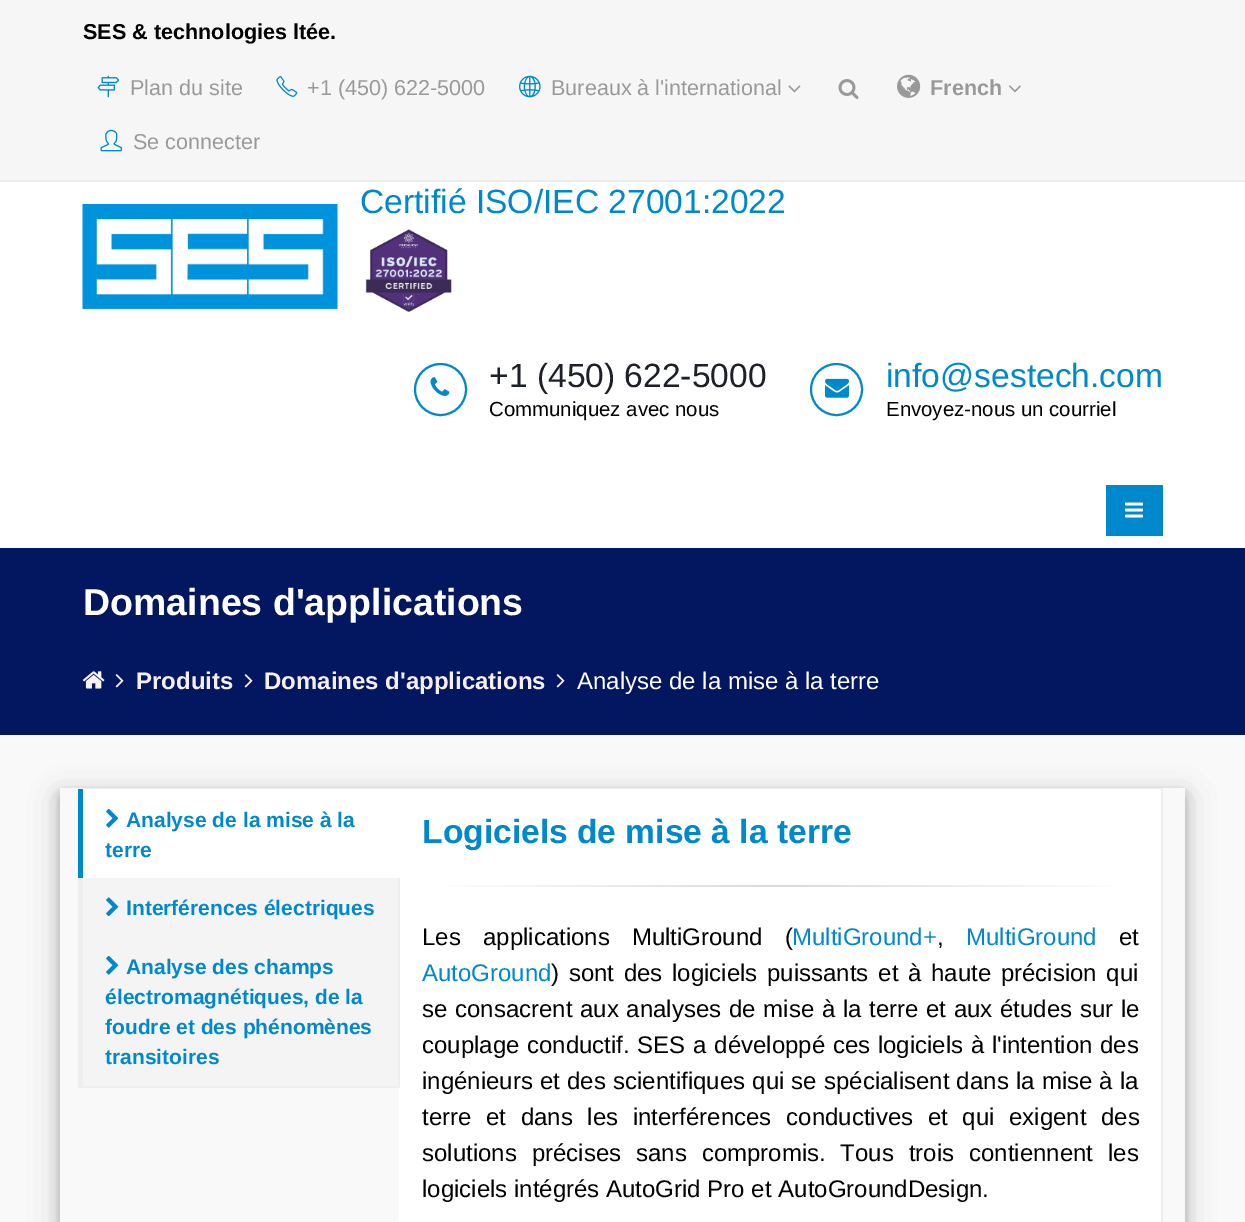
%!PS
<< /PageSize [1245 1222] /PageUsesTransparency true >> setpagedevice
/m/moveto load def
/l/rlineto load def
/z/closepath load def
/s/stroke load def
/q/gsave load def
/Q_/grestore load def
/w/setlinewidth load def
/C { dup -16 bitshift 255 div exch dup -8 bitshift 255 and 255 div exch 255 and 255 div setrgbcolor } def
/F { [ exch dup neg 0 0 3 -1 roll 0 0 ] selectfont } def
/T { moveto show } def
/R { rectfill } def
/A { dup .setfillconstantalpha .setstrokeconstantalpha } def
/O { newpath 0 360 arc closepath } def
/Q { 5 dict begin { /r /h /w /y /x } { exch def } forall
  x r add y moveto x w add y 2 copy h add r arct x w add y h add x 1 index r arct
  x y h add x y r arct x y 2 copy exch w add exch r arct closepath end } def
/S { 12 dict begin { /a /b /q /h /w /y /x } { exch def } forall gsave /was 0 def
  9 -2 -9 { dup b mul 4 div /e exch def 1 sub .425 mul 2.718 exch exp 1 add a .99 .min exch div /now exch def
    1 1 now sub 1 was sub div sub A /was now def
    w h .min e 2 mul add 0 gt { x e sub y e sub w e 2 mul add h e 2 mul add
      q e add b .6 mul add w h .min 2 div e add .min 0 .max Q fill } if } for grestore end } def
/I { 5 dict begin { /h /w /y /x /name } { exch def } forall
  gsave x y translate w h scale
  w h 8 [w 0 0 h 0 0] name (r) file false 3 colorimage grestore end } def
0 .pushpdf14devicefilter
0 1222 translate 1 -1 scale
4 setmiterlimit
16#F9F9F9 C
0 0 1245 1222 R
16#FFFFFF C
0 182 1245 366 R
16#F6F6F6 C
0 0 1245 180 R
16#EDEDED C
0 180 1245 2 R
/LiberationSans-Bold 21.6 F
16#000000 C
(SES & technologies ltée.) 83 39 T
(1.rgb) 97 75 23 23 I
/LiberationSans-Regular 21.6 F
16#999999 C
(Plan du site) 130 95 T
(2.rgb) 276 76 22 21 I
(+1 \(450\) 622-5000) 307 95 T
(3.rgb) 519 75 22 23 I
(Bureaux à l'international) 551 95 T
(4.rgb) 788 85 13 8 I
(5.rgb) 838 79 21 20 I
(6.rgb) 897 74 24 24 I
/LiberationSans-Bold 21.6 F
(French) 930 95 T
(7.rgb) 1009 85 12 8 I
(8.rgb) 100 129 23 23 I
/LiberationSans-Regular 21.6 F
(Se connecter) 133 149 T
/LiberationSans-Regular 33.6 F
16#0088CC C
(Certifié ISO/IEC 27001:2022) 360 213 T
(9.rgb) 82 204 256 105 I
(10.rgb) 365 229 87 84 I
2 w
440.5 389.5 25.5 O s
(11.rgb) 430 377 20 19 I
16#1D2127 C
(+1 \(450\) 622-5000) 489 387 T
/LiberationSans-Regular 20.4 F
16#000000 C
(Communiquez avec nous) 489 416 T
16#0088CC C
836.5 389.5 25.5 O s
(12.rgb) 825 378 24 20 I
/LiberationSans-Regular 33.6 F
(info@sestech.com) 886 387 T
/LiberationSans-Regular 20.4 F
16#000000 C
(Envoyez-nous un courriel) 886 416 T
16#0088CC C
1106 485 57 51 R
(13.rgb) 1125 502 18 16 I
16#02175F C
0 548 1245 187 R
/LiberationSans-Bold 37.5 F
16#FFFFFF C
(Domaines d'applications) 83 615 T
(14.rgb) 82 671 23 18 I
(15.rgb) 115 674 9 14 I
/LiberationSans-Bold 24 F
16#F5EEEE C
(Produits) 136 689 T
(15.rgb) 244 674 9 14 I
(Domaines d'applications) 264 689 T
(15.rgb) 556 674 9 14 I
/LiberationSans-Regular 24 F
16#FFFFFF C
(Analyse de la mise à la terre) 577 689 T
q
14 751 m 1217 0 l 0 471 l -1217 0 l z 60 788 m 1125 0 l 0 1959 l -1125 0 l z eoclip newpath
16#000000 C
60 797 1125 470 0 15 .19 S
Q_
q
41 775 m 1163 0 l 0 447 l -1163 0 l z 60 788 m 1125 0 l 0 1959 l -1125 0 l z eoclip newpath
16#000000 C
60 794 1125 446 0 6 .2 S
Q_
16#EEEEEE C
83 788 1080 1 R
16#FFFFFF C
83 789 316 89 R
16#0088CC C
78 789 5 90 R
(16.rgb) 106 808 13 20 I
/LiberationSans-Bold 21 F
(Analyse de la mise à la) 126 827 T
(terre) 105 857 T
16#F4F4F4 C
83 878 315 208 R
16#FFFFFF C
399 789 762 433 R
16#EEEEEE C
398 878 2 210 R
78 878 5 60 R
(17.rgb) 106 897 13 20 I
16#0088CC C
(Interférences électriques) 126 915 T
16#EEEEEE C
78 1086 321 2 R
78 936 5 152 R
(18.rgb) 106 955 13 20 I
16#0088CC C
(Analyse des champs) 126 974 T
(électromagnétiques, de la) 105 1004 T
(foudre et des phénomènes) 105 1034 T
(transitoires) 105 1064 T
16#EEEEEE C
1161 789 2 433 R
/LiberationSans-Bold 33.6 F
16#0088CC C
(Logiciels de mise à la terre) 422 843 T
q 447 885 m 667 0 l 0 2 l -667 0 l z clip newpath
<< /ShadingType 2 /ColorSpace /DeviceRGB /Coords [422 886 1139 886] /Extend [true true] /Function << /FunctionType 3 /Domain [0 1] /Functions [<< /FunctionType 2 /Domain [0 1] /C0 [1 1 1] /C1 [.859 .859 .859] /N 1 >> << /FunctionType 2 /Domain [0 1] /C0 [.859 .859 .859] /C1 [1 1 1] /N 1 >>] /Bounds [.5] /Encode [0 1 0 1] >> >> shfill Q_
/LiberationSans-Regular 24 F
16#000000 C
422 945 m 15.5 0 32 (Les applications MultiGround \() widthshow
16#0088CC C
(MultiGround+) 792 945 T
16#000000 C
(,) 937 945 T
16#0088CC C
(MultiGround) 966 945 T
16#000000 C
(et) 1119 945 T
16#0088CC C
(AutoGround) 422 981 T
16#000000 C
551 981 m 3 0 32 (\) sont des logiciels puissants et à haute précision qui) widthshow
422 1017 m 1 0 32 (se consacrent aux analyses de mise à la terre et aux études sur le) widthshow
422 1053 m 1 0 32 (couplage conductif. SES a développé ces logiciels à l'intention des) widthshow
422 1089 m .5 0 32 (ingénieurs et des scientifiques qui se spécialisent dans la mise à la) widthshow
422 1125 m 8 0 32 (terre et dans les interférences conductives et qui exigent des) widthshow
422 1161 m 8.25 0 32 (solutions précises sans compromis. Tous trois contiennent les) widthshow
(logiciels intégrés AutoGrid Pro et AutoGroundDesign.) 422 1197 T
.poppdf14devicefilter showpage
